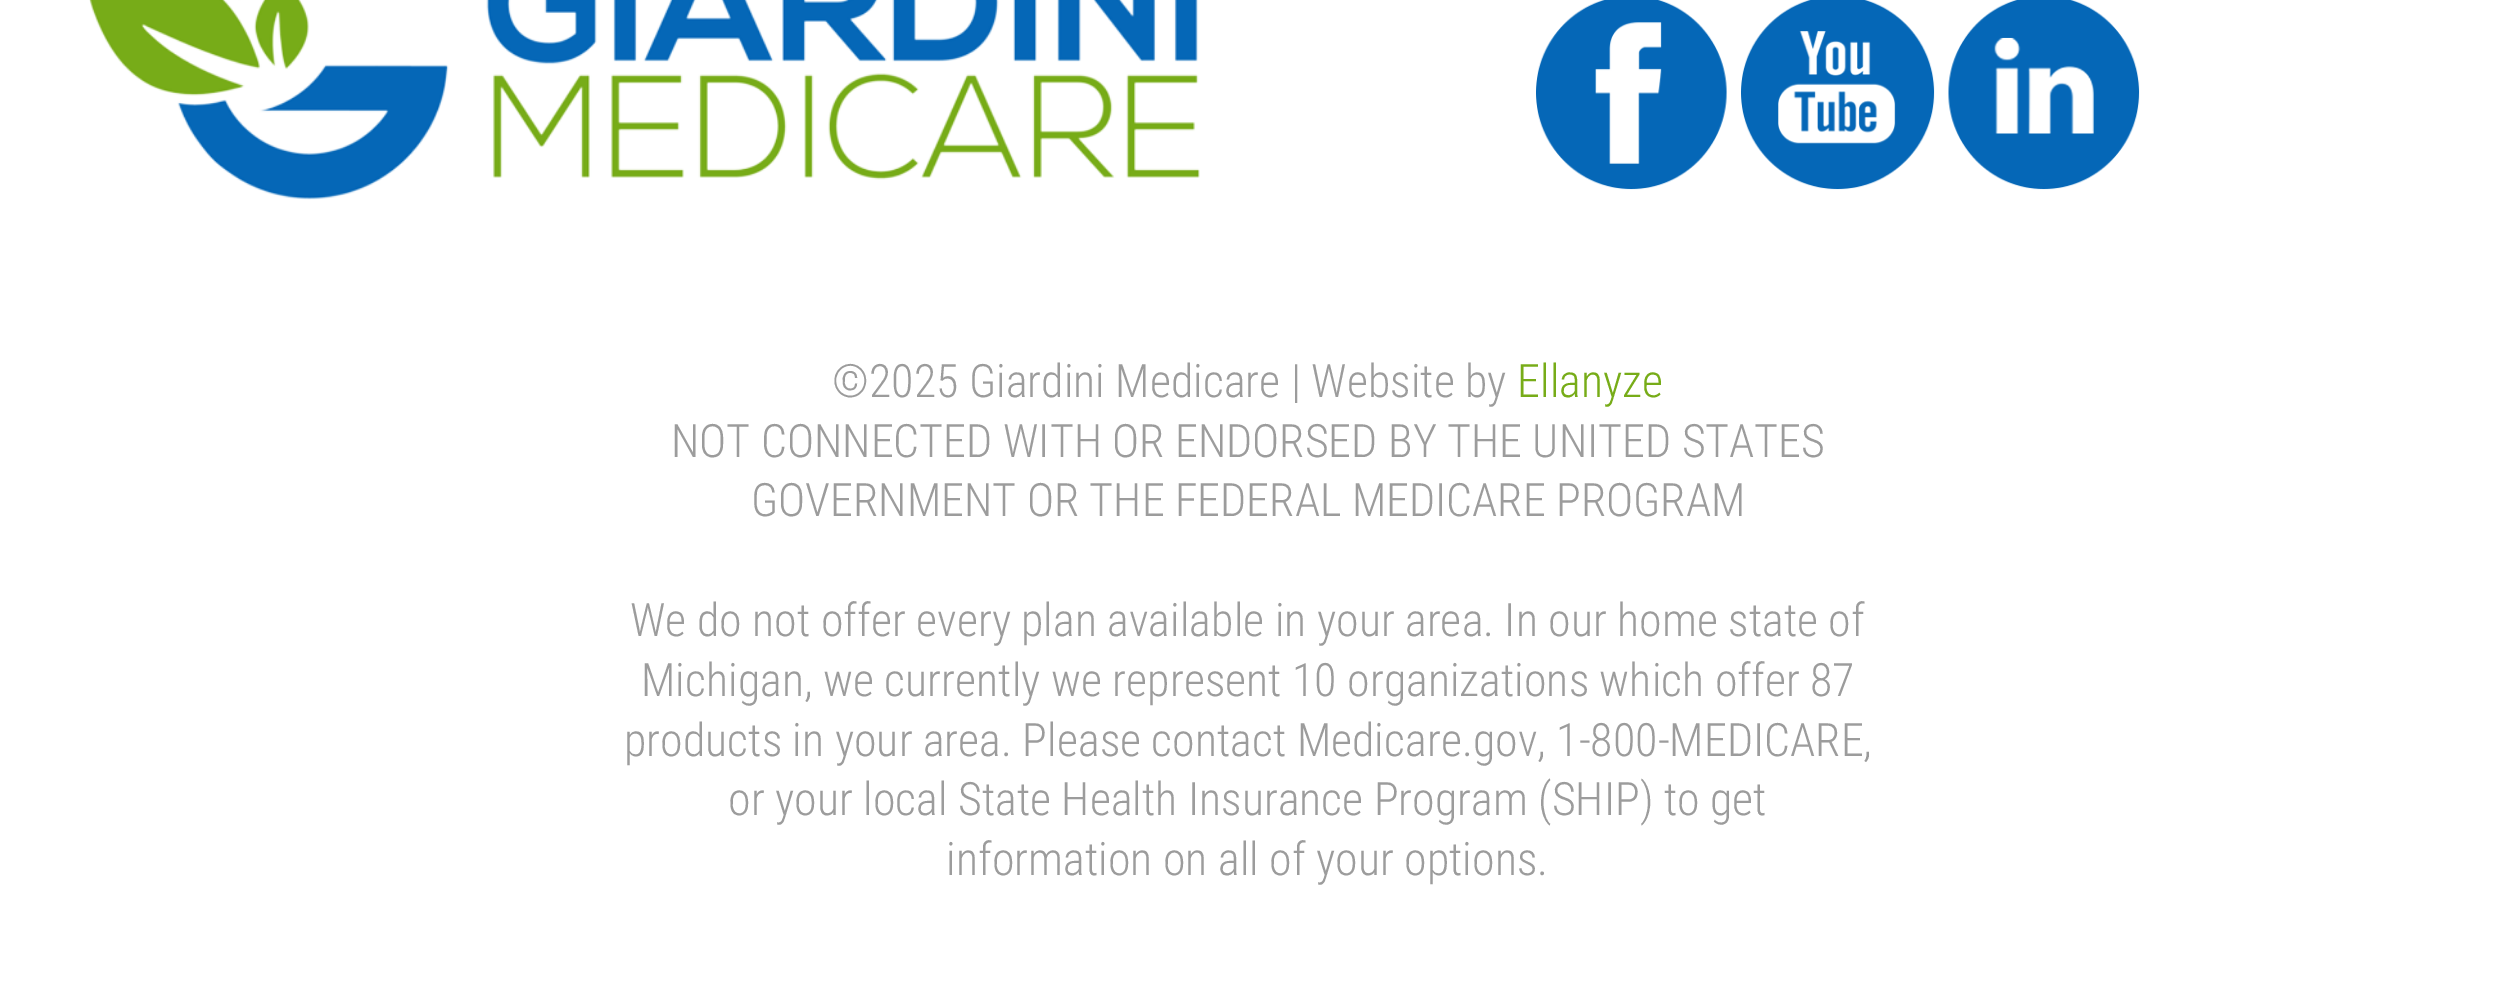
%!PS
<< /PageSize [2495 995] >> setpagedevice
/C { dup -16 bitshift 255 div exch dup -8 bitshift 255 and 255 div exch 255 and 255 div setrgbcolor } def
/F { [ exch dup neg 0 0 3 -1 roll 0 0 ] selectfont } def
/T { moveto show } def
/R { rectfill } def
/I { 5 dict begin { /h /w /y /x /name } { exch def } forall
  gsave x y translate w h scale
  w h 8 [w 0 0 h 0 0] name (r) file false 3 colorimage grestore end } def
0 995 translate 1 -1 scale
4 setmiterlimit
16#FFFFFF C
0 0 2495 995 R
(1.rgb) 89 0 1111 200 I
(2.rgb) 1536 0 191 190 I
(3.rgb) 1741 0 194 190 I
(4.rgb) 1948 0 192 190 I
/RobotoCondensed-Light 46 F
16#9C9C9C C
(©2025 Giardini Medicare | Website by) 832 397 T
16#77AC18 C
(Ellanyze) 1517 397 T
16#9C9C9C C
(NOT CONNECTED WITH OR ENDORSED BY THE UNITED STATES) 671 457 T
(GOVERNMENT OR THE FEDERAL MEDICARE PROGRAM) 751 516 T
(We do not offer every plan available in your area. In our home state of) 630 636 T
(Michigan, we currently we represent 10 organizations which offer 87) 641 696 T
(products in your area. Please contact Medicare.gov, 1-800-MEDICARE,) 624 756 T
(or your local State Health Insurance Program \(SHIP\) to get) 728 815 T
(information on all of your options.) 946 875 T
showpage
